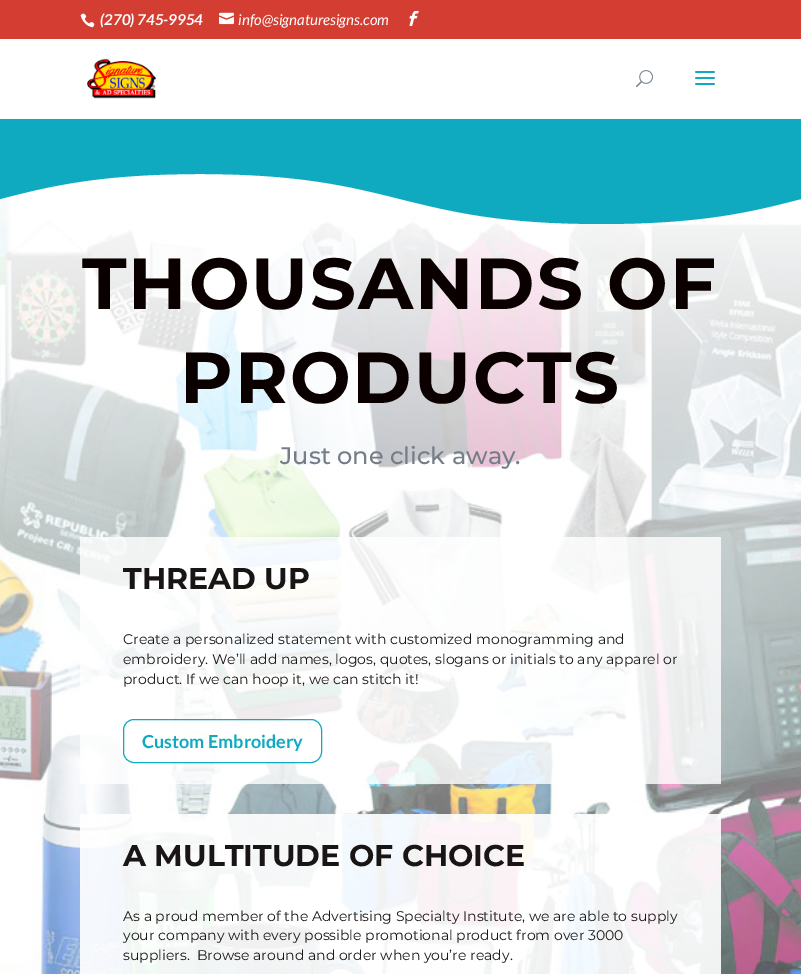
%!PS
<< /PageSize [801 974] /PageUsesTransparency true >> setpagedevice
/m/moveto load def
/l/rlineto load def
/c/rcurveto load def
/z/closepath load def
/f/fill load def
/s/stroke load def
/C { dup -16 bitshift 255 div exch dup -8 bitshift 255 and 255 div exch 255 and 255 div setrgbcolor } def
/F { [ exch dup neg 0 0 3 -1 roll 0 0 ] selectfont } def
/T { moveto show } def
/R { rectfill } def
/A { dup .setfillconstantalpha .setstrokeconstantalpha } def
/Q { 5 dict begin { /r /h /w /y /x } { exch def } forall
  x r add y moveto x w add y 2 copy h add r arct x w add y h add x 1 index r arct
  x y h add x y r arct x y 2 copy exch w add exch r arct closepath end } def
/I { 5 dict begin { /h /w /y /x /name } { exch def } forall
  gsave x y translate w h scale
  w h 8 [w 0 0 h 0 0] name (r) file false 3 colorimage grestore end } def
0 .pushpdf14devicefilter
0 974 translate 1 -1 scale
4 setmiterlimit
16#0FAAC0 C
0 0 801 974 R
16#D33D32 C
0 0 801 39 R
(1.rgb) 80 13 15 15 I
/Lato-BoldItalic 15 F
16#FFFFFF C
(\(270\) 745-9954) 100 25 T
(2.rgb) 219 12 15 13 I
/Lato-Italic 15 F
(info@signaturesigns.com) 238 25 T
(3.rgb) 409 10 10 16 I
0 39 801 80 R
(4.rgb) 87 58 69 41 I
(5.rgb) 636 70 17 18 I
(6.rgb) 695 71 20 14 I
55 174 288 12 R
(7.rgb) 0 186 801 788 I
16#0FAAC0 C
200 174 m -100 0 -150 12 -200 25 c 0 -42 l 801 0 l 0 42 l -50 13 -100 25 -200 25 c -201 0 -201 -50 -401 -50 c z f
/Montserrat-Thin 72 F
16#0A0000 C
82 309 m 2 0 (THOUSANDS OF) ashow
180 403 m 2 0 (PRODUCTS) ashow
/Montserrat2-Thin 24 F
16#747D88 C
(Just one click away.) 280 464 T
0.8 A
16#FFFFFF C
80 537 641 247 R
/Montserrat-Thin 30 F
1 A
16#191514 C
(THREAD UP) 123 589 T
/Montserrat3-Thin 14 F
(Create a personalized statement with customized monogramming and) 123 644 T
(embroidery. We’ll add names, logos, quotes, slogans or initials to any apparel or) 123 664 T
(product. If we can hoop it, we can stitch it!) 123 684 T
0.86 A
16#FFFFFF C
123.5 719.5 198 43 10.5 Q f
1 A
16#0FAAC0 C
123.5 719.5 198 43 10.5 Q s
/Lato-Bold 18 F
(Custom Embroidery) 142 748 T
0.91 A
16#FFFFFF C
80 814 641 160 R
/Montserrat-Thin 30 F
1 A
16#191514 C
(A MULTITUDE OF CHOICE) 123 866 T
/Montserrat3-Thin 14 F
(As a proud member of the Advertising Specialty Institute, we are able to supply) 123 921 T
(your company with every possible promotional product from over 3000) 123 940 T
(suppliers.  Browse around and order when you’re ready.) 123 960 T
.poppdf14devicefilter showpage
